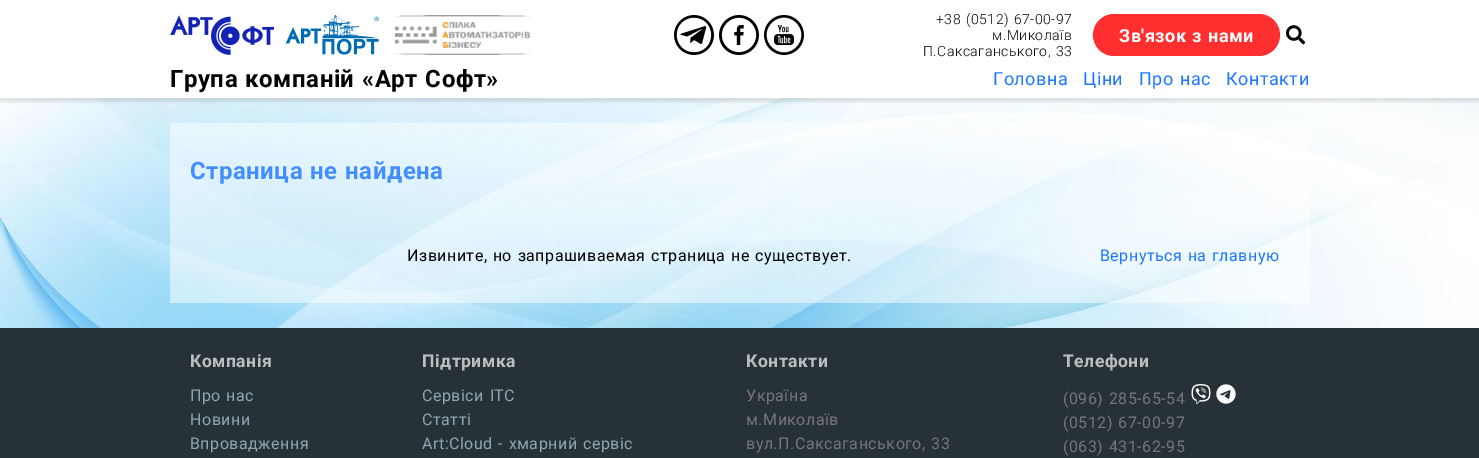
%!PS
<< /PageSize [1479 458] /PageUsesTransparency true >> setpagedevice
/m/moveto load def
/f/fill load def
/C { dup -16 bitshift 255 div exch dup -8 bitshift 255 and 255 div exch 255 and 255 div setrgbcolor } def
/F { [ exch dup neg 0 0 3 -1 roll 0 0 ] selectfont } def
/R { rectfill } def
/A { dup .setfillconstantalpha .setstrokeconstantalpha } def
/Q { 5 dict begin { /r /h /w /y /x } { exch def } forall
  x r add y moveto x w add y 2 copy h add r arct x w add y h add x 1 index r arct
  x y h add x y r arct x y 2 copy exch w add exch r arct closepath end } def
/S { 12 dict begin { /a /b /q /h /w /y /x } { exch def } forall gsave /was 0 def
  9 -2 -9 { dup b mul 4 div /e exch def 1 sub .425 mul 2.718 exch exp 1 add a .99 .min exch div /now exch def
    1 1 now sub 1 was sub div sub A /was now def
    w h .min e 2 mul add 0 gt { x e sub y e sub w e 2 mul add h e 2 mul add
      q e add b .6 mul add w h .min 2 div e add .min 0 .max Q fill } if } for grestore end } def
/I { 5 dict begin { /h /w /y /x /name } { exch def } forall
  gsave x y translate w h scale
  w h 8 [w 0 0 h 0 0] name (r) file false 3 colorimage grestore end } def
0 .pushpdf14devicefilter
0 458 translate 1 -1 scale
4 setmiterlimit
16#FFFFFF C
0 0 1479 458 R
(1.rgb) 0 98 1479 230 I
16#000000 C
0 0 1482 102 0 1 .1 S
16#FFFFFF C
0 0 1479 98 R
(2.rgb) 170 15 104 40 I
(3.rgb) 285 15 94 40 I
(4.rgb) 395 15 135 40 I
(5.rgb) 674 15 40 40 I
(6.rgb) 719 15 40 40 I
(7.rgb) 764 15 40 40 I
/Roboto-Light 14 F
16#000000 C
936 24 m 1 0 32 .5 0 (+38 \(0512\) 67-00-97) awidthshow
992 40 m .5 0 (м.Миколаїв) ashow
923 56 m 1 0 32 .5 0 (П.Саксаганського, 33) awidthshow
16#FF2F2F C
1093 14 187 42 21 Q f
/Roboto-Bold 18 F
16#FFFFFF C
1119 42 m 1 0 32 .5 0 (Зв'язок з нами) awidthshow
(8.rgb) 1286 25 20 20 I
/Roboto-Bold 24 F
16#000000 C
170 87 m 1 0 32 .5 0 (Група компаній «Арт Софт») awidthshow
/Roboto-Regular 18 F
16#1E78FF C
993 85 m .5 0 (Головна) ashow
1083 85 m .5 0 (Ціни) ashow
1139 85 m 1 0 32 .5 0 (Про нас) awidthshow
1226 85 m .5 0 (Контакти) ashow
0.5 A
16#FFFFFF C
170 123 1140 180 R
/Roboto-Bold 24 F
1 A
16#428EFF C
190 179 m 1 0 32 .5 0 (Страница не найдена) awidthshow
/Roboto-Regular 16 F
16#000000 C
407 261 m 1 0 32 .5 0 (Извините, но запрашиваемая страница не существует.) awidthshow
16#1E78FF C
1100 261 m 1 0 32 .5 0 (Вернуться на главную) awidthshow
16#263238 C
0 328 1479 130 R
/Roboto-Bold 17.5 F
16#BDBDBD C
190 367 m .5 0 (Компанія) ashow
/Roboto-Regular 16 F
16#90A4AE C
190 401 m 1 0 32 .5 0 (Про нас) awidthshow
190 425 m .5 0 (Новини) ashow
190 449 m .5 0 (Впровадження) ashow
/Roboto-Bold 17.5 F
16#BDBDBD C
422 367 m .5 0 (Підтримка) ashow
/Roboto-Regular 16 F
16#90A4AE C
422 401 m 1 0 32 .5 0 (Сервіси ІТС) awidthshow
422 425 m .5 0 (Статті) ashow
422 449 m 1 0 32 .5 0 (Art:Cloud - хмарний сервіс) awidthshow
/Roboto-Bold 17.5 F
16#BDBDBD C
746 367 m .5 0 (Контакти) ashow
/Roboto-Regular 16 F
16#757575 C
746 401 m .5 0 (Україна) ashow
746 425 m .5 0 (м.Миколаїв) ashow
746 449 m 1 0 32 .5 0 (вул.П.Саксаганського, 33) awidthshow
/Roboto-Bold 17.5 F
16#BDBDBD C
1063 367 m .5 0 (Телефони) ashow
/Roboto-Regular 16 F
16#757575 C
1063 404 m 1 0 32 .5 0 (\(096\) 285-65-54) awidthshow
(9.rgb) 1191 384 20 20 I
(10.rgb) 1216 384 20 20 I
1063 428 m 1 0 32 .5 0 (\(0512\) 67-00-97) awidthshow
1063 452 m 1 0 32 .5 0 (\(063\) 431-62-95) awidthshow
.poppdf14devicefilter showpage
